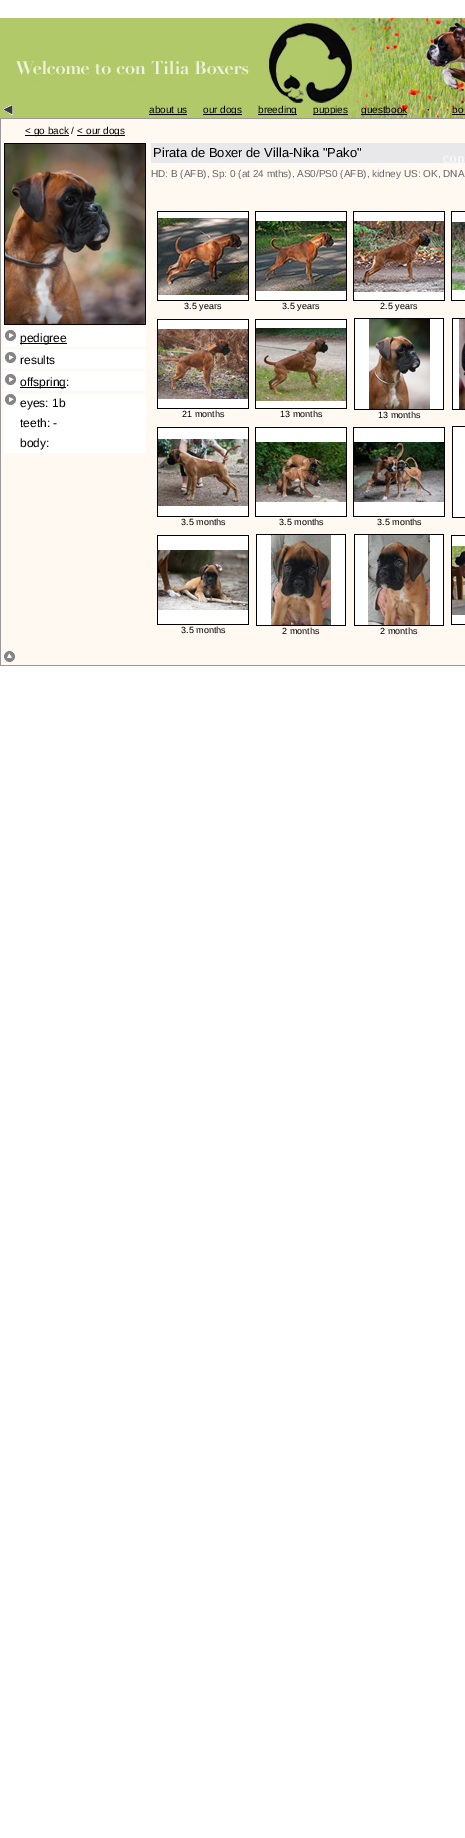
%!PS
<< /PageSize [465 1838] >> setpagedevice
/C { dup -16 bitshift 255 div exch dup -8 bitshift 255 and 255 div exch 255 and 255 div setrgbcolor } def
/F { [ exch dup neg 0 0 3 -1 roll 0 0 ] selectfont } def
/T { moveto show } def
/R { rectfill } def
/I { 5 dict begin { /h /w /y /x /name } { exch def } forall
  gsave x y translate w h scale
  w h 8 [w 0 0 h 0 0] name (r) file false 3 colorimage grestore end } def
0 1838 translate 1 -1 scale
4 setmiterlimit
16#FFFFFF C
0 0 465 1838 R
(1.rgb) 0 18 465 100 I
(2.rgb) 3 105 10 10 I
/LiberationSans-Regular 10 F
16#000000 C
(about us) 149 113 T
149 114 38 1 R
203 114 39 1 R
(our dogs) 203 113 T
258 114 39 1 R
(breeding) 258 113 T
313 114 35 1 R
(puppies) 313 113 T
361 114 46 1 R
(guestbook) 361 113 T
/LiberationSans-Bold 10 F
(·) 427 113 T
/LiberationSans-Regular 10 F
(bo) 452 113 T
452 114 13 1 R
16#999999 C
0 118 465 548 R
16#FFF9F2 C
1 119 464 546 R
16#000000 C
25 135 44 1 R
(< go back / <) 25 134 T
77 135 48 1 R
(our dogs) 86 134 T
4 143 142 182 R
(3.rgb) 5 144 140 180 I
16#FFFFFF C
4 327 142 20 R
(4.rgb) 5 330 11 11 I
16#000000 C
20 343 47 1 R
/LiberationSans-Regular 12 F
(pedigree) 20 342 T
16#FFFFFF C
4 349 142 20 R
(4.rgb) 5 352 11 11 I
16#000000 C
(results) 20 364 T
16#FFFFFF C
4 371 142 20 R
(4.rgb) 5 374 11 11 I
16#000000 C
20 387 46 1 R
(offspring:) 20 386 T
16#FFFFFF C
4 393 142 60 R
(4.rgb) 5 394 11 11 I
16#000000 C
(eyes: 1b) 20 407 T
(teeth: -) 20 427 T
(body:) 20 447 T
(5.rgb) 151 143 314 20 I
/LiberationSans-Regular 13 F
(Pirata de Boxer de Villa-Nika "Pako") 153 157 T
/LiberationSans-Regular 10 F
16#666666 C
(HD: B \(AFB\), Sp: 0 \(at 24 mths\), AS0/PS0 \(AFB\), kidney US: OK, DNA) 151 177 T
16#000000 C
451 211 14 90 R
16#FFFFFF C
452 212 13 88 R
(6.rgb) 452 222 13 68 I
16#000000 C
157 211 92 90 R
16#FFFFFF C
158 212 90 88 R
(7.rgb) 158 218 90 77 I
/LiberationSans-Regular 9 F
16#000000 C
(3.5 years) 184 309 T
255 211 92 90 R
16#FFFFFF C
256 212 90 88 R
(8.rgb) 256 221 90 70 I
16#000000 C
(3.5 years) 282 309 T
353 211 92 90 R
16#FFFFFF C
354 212 90 88 R
(9.rgb) 354 221 90 71 I
16#000000 C
(2.5 years) 380 309 T
452 318 13 92 R
16#FFFFFF C
453 319 6 90 R
(10.rgb) 459 319 6 90 I
16#000000 C
157 319 92 90 R
16#FFFFFF C
158 320 90 88 R
(11.rgb) 158 329 90 70 I
16#000000 C
(21 months) 182 417 T
255 319 92 90 R
16#FFFFFF C
256 320 90 88 R
(12.rgb) 256 328 90 73 I
16#000000 C
(13 months) 280 417 T
354 318 90 92 R
16#FFFFFF C
355 319 88 90 R
(13.rgb) 369 319 61 90 I
16#000000 C
(13 months) 378 418 T
452 426 13 92 R
16#FFFFFF C
453 427 12 90 R
16#000000 C
157 427 92 90 R
16#FFFFFF C
158 428 90 88 R
(14.rgb) 158 439 90 67 I
16#000000 C
(3.5 months) 181 525 T
255 427 92 90 R
16#FFFFFF C
256 428 90 88 R
(15.rgb) 256 442 90 60 I
16#000000 C
(3.5 months) 279 525 T
353 427 92 90 R
16#FFFFFF C
354 428 90 88 R
(16.rgb) 354 442 90 60 I
16#000000 C
(3.5 months) 377 525 T
451 535 14 90 R
16#FFFFFF C
452 536 13 88 R
(17.rgb) 452 546 13 69 I
16#000000 C
157 535 92 90 R
16#FFFFFF C
158 536 90 88 R
(18.rgb) 158 550 90 60 I
16#000000 C
(3.5 months) 181 633 T
256 534 90 92 R
16#FFFFFF C
257 535 88 90 R
(19.rgb) 271 535 60 90 I
16#000000 C
(2 months) 282 634 T
354 534 90 92 R
16#FFFFFF C
355 535 88 90 R
(20.rgb) 368 535 62 90 I
16#000000 C
(2 months) 380 634 T
(21.rgb) 3 650 13 13 I
showpage
